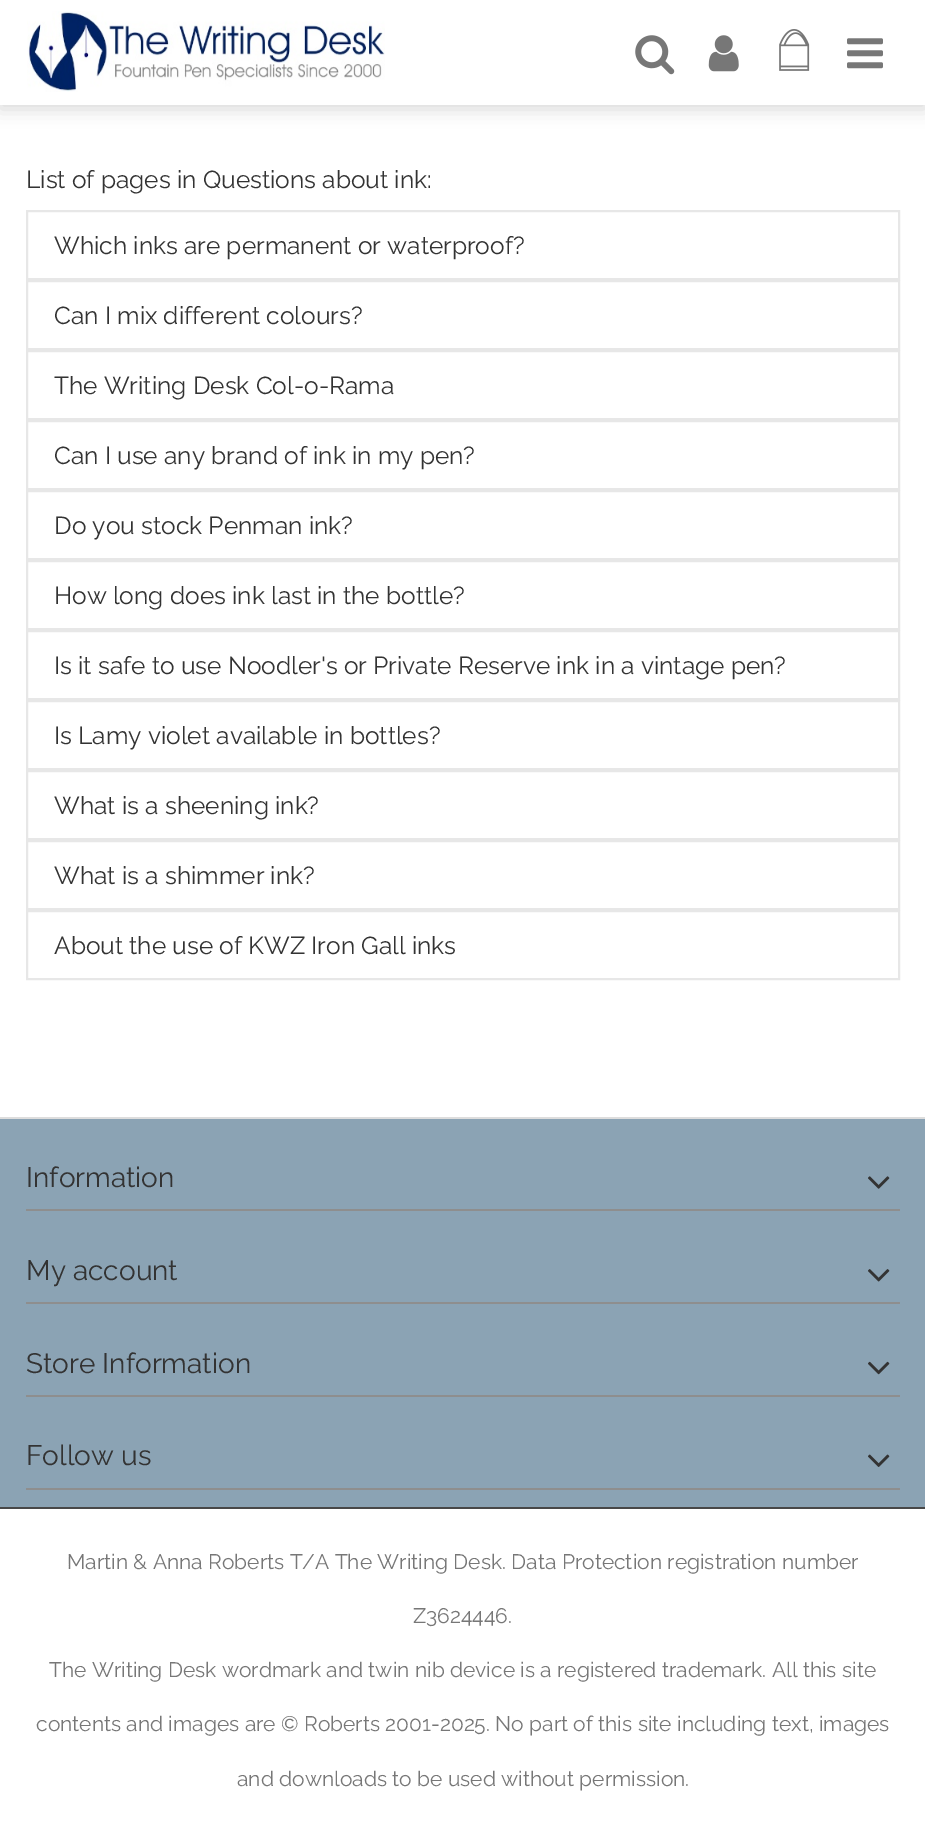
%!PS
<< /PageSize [925 1848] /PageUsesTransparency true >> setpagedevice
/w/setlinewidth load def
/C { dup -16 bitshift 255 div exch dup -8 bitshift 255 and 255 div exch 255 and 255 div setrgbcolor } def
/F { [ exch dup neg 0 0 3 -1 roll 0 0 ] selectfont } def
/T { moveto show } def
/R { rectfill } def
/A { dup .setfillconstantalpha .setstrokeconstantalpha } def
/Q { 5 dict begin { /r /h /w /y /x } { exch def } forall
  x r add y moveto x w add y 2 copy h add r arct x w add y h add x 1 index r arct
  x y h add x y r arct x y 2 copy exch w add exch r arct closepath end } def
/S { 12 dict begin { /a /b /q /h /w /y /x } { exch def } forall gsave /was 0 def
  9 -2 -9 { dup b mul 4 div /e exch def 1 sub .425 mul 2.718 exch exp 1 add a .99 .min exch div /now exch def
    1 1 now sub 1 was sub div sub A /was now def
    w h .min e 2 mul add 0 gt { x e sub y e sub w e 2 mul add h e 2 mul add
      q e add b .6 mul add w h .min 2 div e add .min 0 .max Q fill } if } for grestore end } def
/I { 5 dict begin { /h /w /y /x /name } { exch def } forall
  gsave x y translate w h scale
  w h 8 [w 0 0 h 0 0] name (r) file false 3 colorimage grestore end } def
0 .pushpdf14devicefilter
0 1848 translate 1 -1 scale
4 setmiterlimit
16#FFFFFF C
0 0 925 1848 R
16#000000 C
0 4 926 105 0 9 .15 S
16#FFFFFF C
0 0 925 105 R
(1.rgb) 27 11 358 81 I
(2.rgb) 635 35 40 40 I
(3.rgb) 708 35 31 37 I
(4.rgb) 779 29 31 42 I
(5.rgb) 847 38 36 31 I
/Raleway-Thin 24.5 F
16#333333 C
(List of pages in Questions about ink:) 26 188 T
16#E7E7E7 C
2 w
27 211 872 68 rectstroke
16#333333 C
(Which inks are permanent or waterproof?) 54 254 T
16#E7E7E7 C
27 281 872 68 rectstroke
16#333333 C
(Can I mix different colours?) 54 324 T
16#E7E7E7 C
27 351 872 68 rectstroke
16#333333 C
(The Writing Desk Col-o-Rama) 54 394 T
16#E7E7E7 C
27 421 872 68 rectstroke
16#333333 C
(Can I use any brand of ink in my pen?) 54 464 T
16#E7E7E7 C
27 491 872 68 rectstroke
16#333333 C
(Do you stock Penman ink?) 54 534 T
16#E7E7E7 C
27 561 872 68 rectstroke
16#333333 C
(How long does ink last in the bottle?) 54 604 T
16#E7E7E7 C
27 631 872 68 rectstroke
16#333333 C
(Is it safe to use Noodler's or Private Reserve ink in a vintage pen?) 54 674 T
16#E7E7E7 C
27 701 872 68 rectstroke
16#333333 C
(Is Lamy violet available in bottles?) 54 744 T
16#E7E7E7 C
27 771 872 68 rectstroke
16#333333 C
(What is a sheening ink?) 54 814 T
16#E7E7E7 C
27 841 872 68 rectstroke
16#333333 C
(What is a shimmer ink?) 54 884 T
16#E7E7E7 C
27 911 872 68 rectstroke
16#333333 C
(About the use of KWZ Iron Gall inks) 54 954 T
16#8BA3B4 C
0 1119 925 388 R
16#DDDDDD C
0 1117 925 2 R
16#484848 C
0 1507 925 2 R
16#8E8E8E C
26 1209 874 2 R
/Raleway-Thin 28 F
16#333333 C
(Information) 26 1187 T
(6.rgb) 868 1176 22 13 I
16#8E8E8E C
26 1302 874 2 R
16#333333 C
(My account) 26 1280 T
(7.rgb) 868 1269 22 13 I
16#8E8E8E C
26 1395 874 2 R
16#333333 C
(Store Information) 26 1373 T
(8.rgb) 868 1361 22 14 I
16#8E8E8E C
26 1488 874 2 R
16#333333 C
(Follow us) 26 1465 T
(9.rgb) 868 1454 22 13 I
/Raleway-Thin 21 F
16#777777 C
(Martin & Anna Roberts T/A The Writing Desk. Data Protection registration number) 67 1569 T
(Z3624446.) 413 1623 T
(The Writing Desk wordmark and twin nib device is a registered trademark. All this site) 49 1677 T
(contents and images are © Roberts 2001-2025. No part of this site including text, images) 36 1731 T
(and downloads to be used without permission.) 237 1786 T
.poppdf14devicefilter showpage
